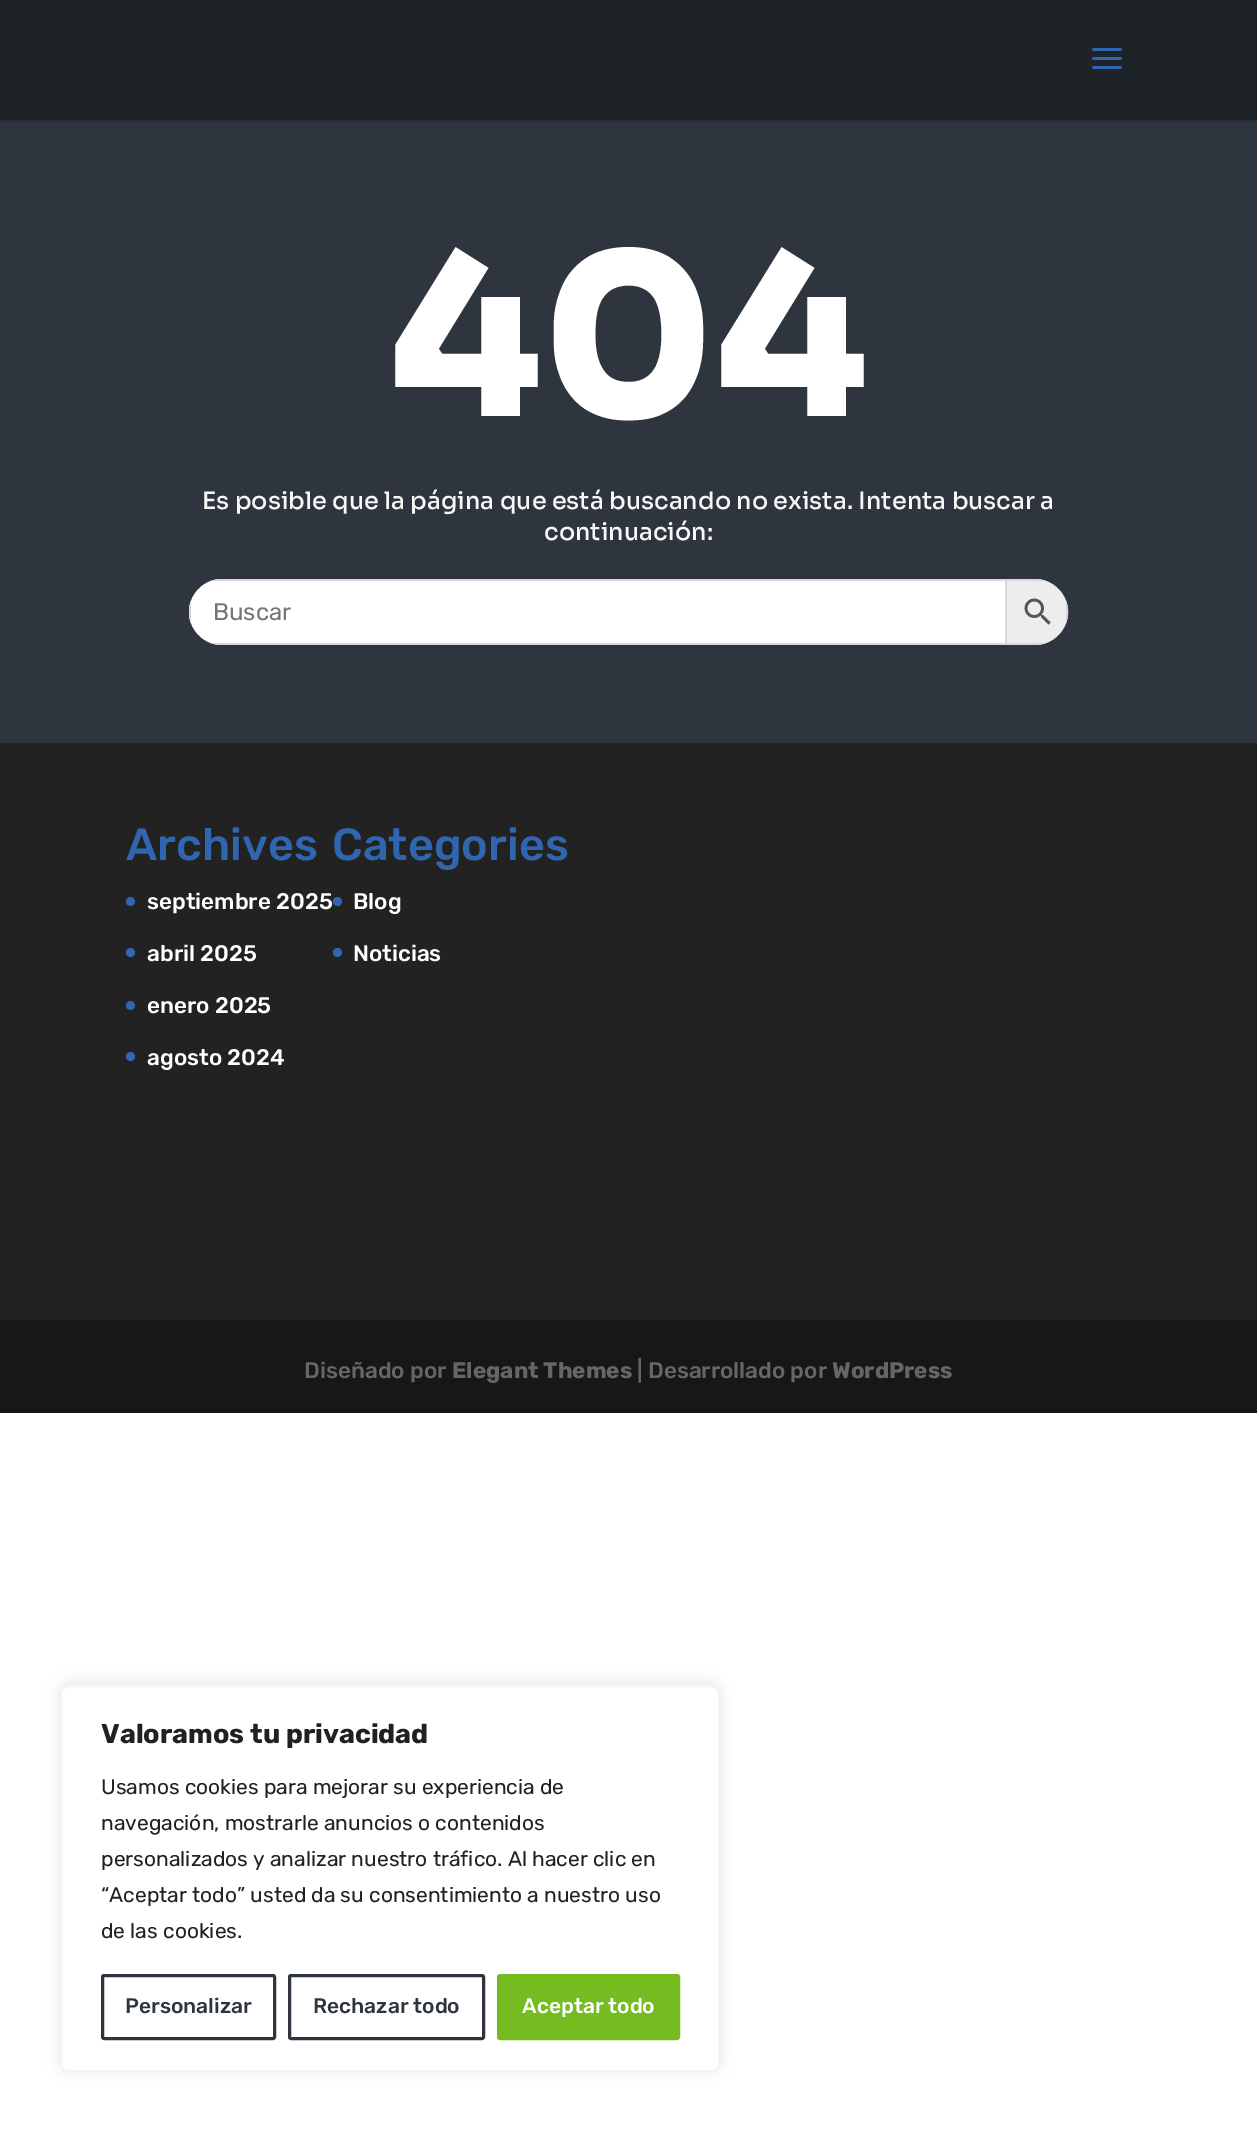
%!PS
<< /PageSize [1257 2131] /PageUsesTransparency true >> setpagedevice
/m/moveto load def
/l/rlineto load def
/c/rcurveto load def
/z/closepath load def
/f/fill load def
/s/stroke load def
/q/gsave load def
/Q_/grestore load def
/w/setlinewidth load def
/C { dup -16 bitshift 255 div exch dup -8 bitshift 255 and 255 div exch 255 and 255 div setrgbcolor } def
/F { [ exch dup neg 0 0 3 -1 roll 0 0 ] selectfont } def
/T { moveto show } def
/R { rectfill } def
/A { dup .setfillconstantalpha .setstrokeconstantalpha } def
/O { newpath 0 360 arc closepath } def
/Q { 5 dict begin { /r /h /w /y /x } { exch def } forall
  x r add y moveto x w add y 2 copy h add r arct x w add y h add x 1 index r arct
  x y h add x y r arct x y 2 copy exch w add exch r arct closepath end } def
/S { 12 dict begin { /a /b /q /h /w /y /x } { exch def } forall gsave /was 0 def
  9 -2 -9 { dup b mul 4 div /e exch def 1 sub .425 mul 2.718 exch exp 1 add a .99 .min exch div /now exch def
    1 1 now sub 1 was sub div sub A /was now def
    w h .min e 2 mul add 0 gt { x e sub y e sub w e 2 mul add h e 2 mul add
      q e add b .6 mul add w h .min 2 div e add .min 0 .max Q fill } if } for grestore end } def
/I { 5 dict begin { /h /w /y /x /name } { exch def } forall
  gsave x y translate w h scale
  w h 8 [w 0 0 h 0 0] name (r) file false 3 colorimage grestore end } def
0 .pushpdf14devicefilter
0 2131 translate 1 -1 scale
4 setmiterlimit
16#FFFFFF C
0 0 1257 2131 R
16#2A3038 C
0 120 1257 2 R
16#1D2327 C
0 0 1257 120 R
(1.rgb) 1092 48 30 21 I
16#2F353E C
0 122 1257 621 R
/Sora-ExtraBold 225 F
16#FFFFFF C
(404) 389 416 T
/Sora-Medium 24 F
16#F7F7F7 C
(Es posible que la página que está buscando no exista. Intenta buscar a) 202 509 T
(continuación:) 544 540 T
16#EDEDED C
1005 579 m 30 0 l 18 0 33 15 33 33 c 0 18 -15 33 -33 33 c -30 0 l z f
16#D8D8D8 C
1005 579 m 0 66 l 30 0 l 4 0 8 -1 11 -2 c -39 0 l 0 -62 l 39 0 l -3 -1 -7 -2 -11 -2 c z 1066 601 m 0 22 l 3 -7 3 -15 0 -22 c z eofill
16#FFFFFF C
222 579 m 785 0 l 0 66 l -785 0 l -18 0 -33 -15 -33 -33 c 0 -18 15 -33 33 -33 c z f
q
189 579 818 66 rectclip
16#D8D8D8 C
222 579 m -4 0 -8 1 -11 2 c 794 0 l 0 62 l -794 0 l 3 1 7 2 11 2 c 785 0 l 0 -66 l z 191 623 m -3 -7 -3 -15 0 -22 c z eofill
Q_
/Rubik-Regular 24 F
16#757575 C
(Buscar) 213 620 T
(2.rgb) 1024 598 27 27 I
16#222222 C
0 743 1257 577 R
/Rubik-Medium 45 F
16#3065AF C
(Archives) 126 860 T
130.5 901.5 4.5 O f
/Rubik-Medium 22.5 F
16#FFFFFF C
(septiembre 2025) 147 909 T
16#3065AF C
130.5 952.5 4.5 O f
16#FFFFFF C
(abril 2025) 147 961 T
16#3065AF C
130.5 1005.5 4.5 O f
16#FFFFFF C
(enero 2025) 147 1013 T
16#3065AF C
130.5 1056.5 4.5 O f
16#FFFFFF C
(agosto 2024) 147 1065 T
/Rubik-Medium 45 F
16#3065AF C
(Categories) 332 860 T
337.5 901.5 4.5 O f
/Rubik-Medium 22.5 F
16#FFFFFF C
(Blog) 353 909 T
16#3065AF C
337.5 952.5 4.5 O f
16#FFFFFF C
(Noticias) 353 961 T
16#171717 C
0 1320 1257 93 R
16#666666 C
(Diseñado por) 304 1378 T
/Rubik-Bold 22.5 F
(Elegant Themes) 452 1378 T
/Rubik-Medium 22.5 F
(| Desarrollado por) 637 1378 T
/Rubik-Bold 22.5 F
(WordPress) 832 1378 T
16#ACABAB C
60 1683 660 387 9 7.5 .3 S
16#FFFFFF C
61 1686 658 385 8 Q q f Q_
16#F4F4F4 C
2 w
s
/Rubik-Bold 27 F
16#212121 C
(Valoramos tu privacidad) 101 1743 T
/Rubik-Regular 21 F
(Usamos cookies para mejorar su experiencia de) 101 1794 T
(navegación, mostrarle anuncios o contenidos) 101 1830 T
(personalizados y analizar nuestro tráfico. Al hacer clic en) 101 1866 T
(“Aceptar todo” usted da su consentimiento a nuestro uso) 101 1902 T
(de las cookies.) 101 1938 T
16#2F353E C
3 w
102.5 1975.5 172 63 1.5 Q s
/Rubik-Medium 21 F
(Personalizar) 125 2013 T
289.5 1975.5 194 63 1.5 Q s
(Rechazar todo) 313 2013 T
16#76BC21 C
498.5 1975.5 180 63 1.5 Q q f Q_
s
16#FFFFFF C
(Aceptar todo) 522 2013 T
.poppdf14devicefilter showpage
